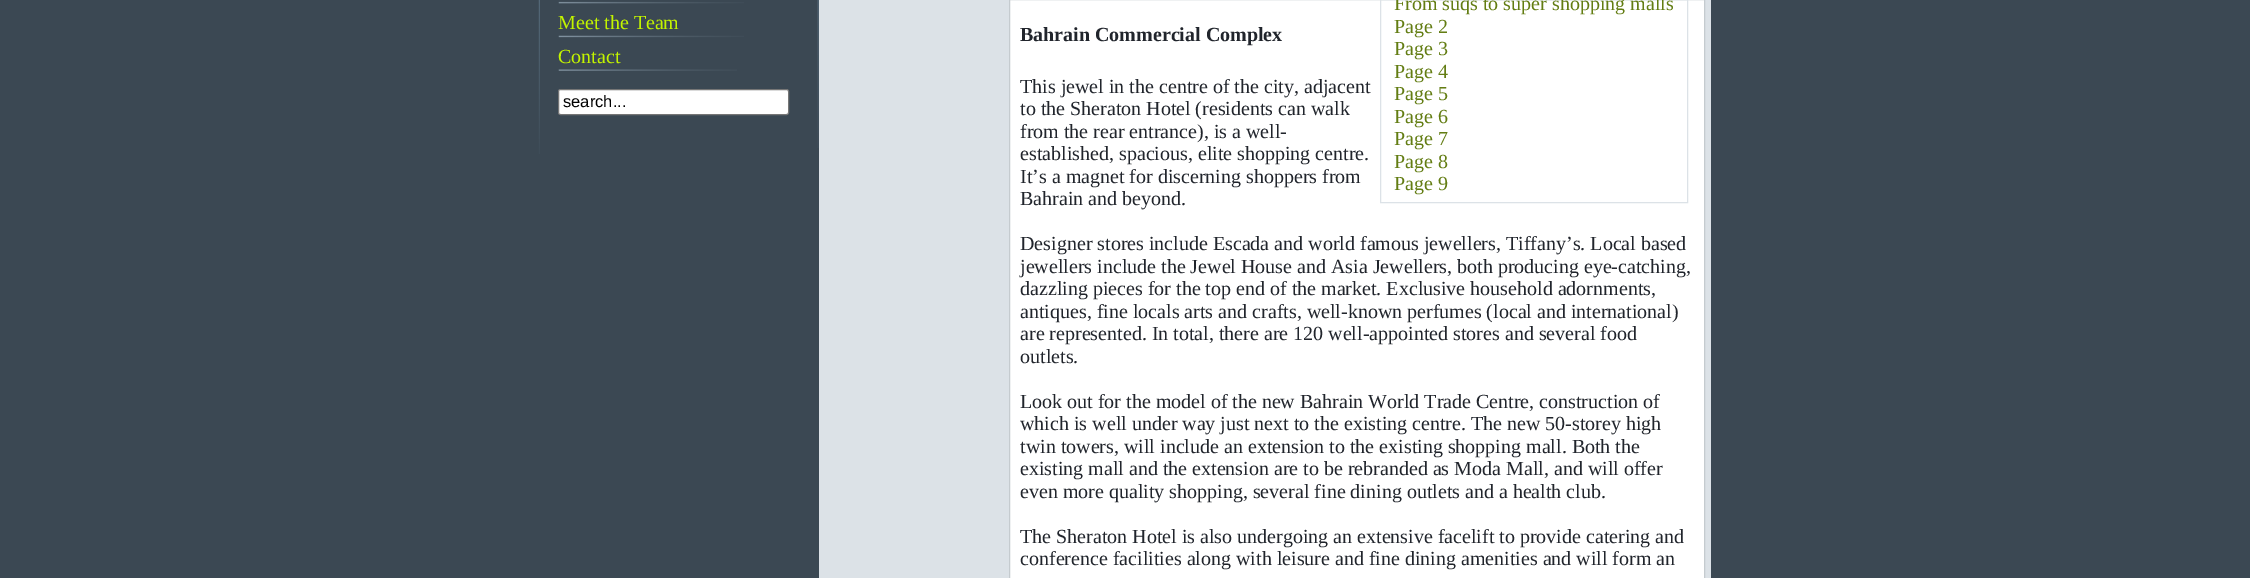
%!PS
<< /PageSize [2250 578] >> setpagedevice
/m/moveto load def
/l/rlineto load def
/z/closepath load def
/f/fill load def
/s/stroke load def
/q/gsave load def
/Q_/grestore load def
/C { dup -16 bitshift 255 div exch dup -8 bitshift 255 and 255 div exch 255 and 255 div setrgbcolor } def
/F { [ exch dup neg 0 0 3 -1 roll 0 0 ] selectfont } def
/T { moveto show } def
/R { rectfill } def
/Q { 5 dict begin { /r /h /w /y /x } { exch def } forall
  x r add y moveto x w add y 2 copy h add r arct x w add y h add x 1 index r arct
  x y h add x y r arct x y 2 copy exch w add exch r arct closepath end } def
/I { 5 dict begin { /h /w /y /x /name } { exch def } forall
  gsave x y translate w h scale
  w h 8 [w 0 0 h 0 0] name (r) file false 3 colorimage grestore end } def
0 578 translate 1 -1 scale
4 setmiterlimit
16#3B4853 C
0 0 2250 578 R
(1.rgb) 538 0 2 154 I
(2.rgb) 817 0 2 148 I
(3.rgb) 558 1 186 3 I
(4.rgb) 558 35 186 3 I
/LiberationSerif-Regular 20 F
16#C3F400 C
(Meet the Team) 558 29 T
(5.rgb) 558 69 179 2 I
(Contact) 558 63 T
16#FFFFFF C
558.5 89.5 230 25 2 Q q f Q_
16#767676 C
s
/LiberationSans-Regular 16.5 F
16#000000 C
(search...) 563 107 T
16#DCE2E7 C
819 0 892 578 R
16#FFFFFF C
1009.5 -.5 m 695 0 l 0 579 l -695 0 l z q f Q_
16#C5CBCF C
s
/LiberationSerif-Bold 20 F
16#21252C C
(Bahrain Commercial Complex) 1020 41 T
16#DCE2E7 C
1380.5 -.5 307 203 rectstroke
/LiberationSerif-Regular 20 F
16#637D13 C
(From suqs to super shopping malls) 1394 10 T
(Page 2) 1394 33 T
(Page 3) 1394 55 T
(Page 4) 1394 78 T
(Page 5) 1394 100 T
(Page 6) 1394 123 T
(Page 7) 1394 145 T
(Page 8) 1394 168 T
(Page 9) 1394 190 T
16#21252C C
(This jewel in the centre of the city, adjacent) 1020 93 T
(to the Sheraton Hotel \(residents can walk) 1020 115 T
(from the rear entrance\), is a well-) 1020 138 T
(established, spacious, elite shopping centre.) 1020 160 T
(It’s a magnet for discerning shoppers from) 1020 183 T
(Bahrain and beyond.) 1020 205 T
(Designer stores include Escada and world famous jewellers, Tiffany’s. Local based) 1020 250 T
(jewellers include the Jewel House and Asia Jewellers, both producing eye-catching,) 1020 273 T
(dazzling pieces for the top end of the market. Exclusive household adornments,) 1020 295 T
(antiques, fine locals arts and crafts, well-known perfumes \(local and international\)) 1020 318 T
(are represented. In total, there are 120 well-appointed stores and several food) 1020 340 T
(outlets.) 1020 363 T
(Look out for the model of the new Bahrain World Trade Centre, construction of) 1020 408 T
(which is well under way just next to the existing centre. The new 50-storey high) 1020 430 T
(twin towers, will include an extension to the existing shopping mall. Both the) 1020 453 T
(existing mall and the extension are to be rebranded as Moda Mall, and will offer) 1020 475 T
(even more quality shopping, several fine dining outlets and a health club.) 1020 498 T
(The Sheraton Hotel is also undergoing an extensive facelift to provide catering and) 1020 543 T
(conference facilities along with leisure and fine dining amenities and will form an) 1020 565 T
showpage
